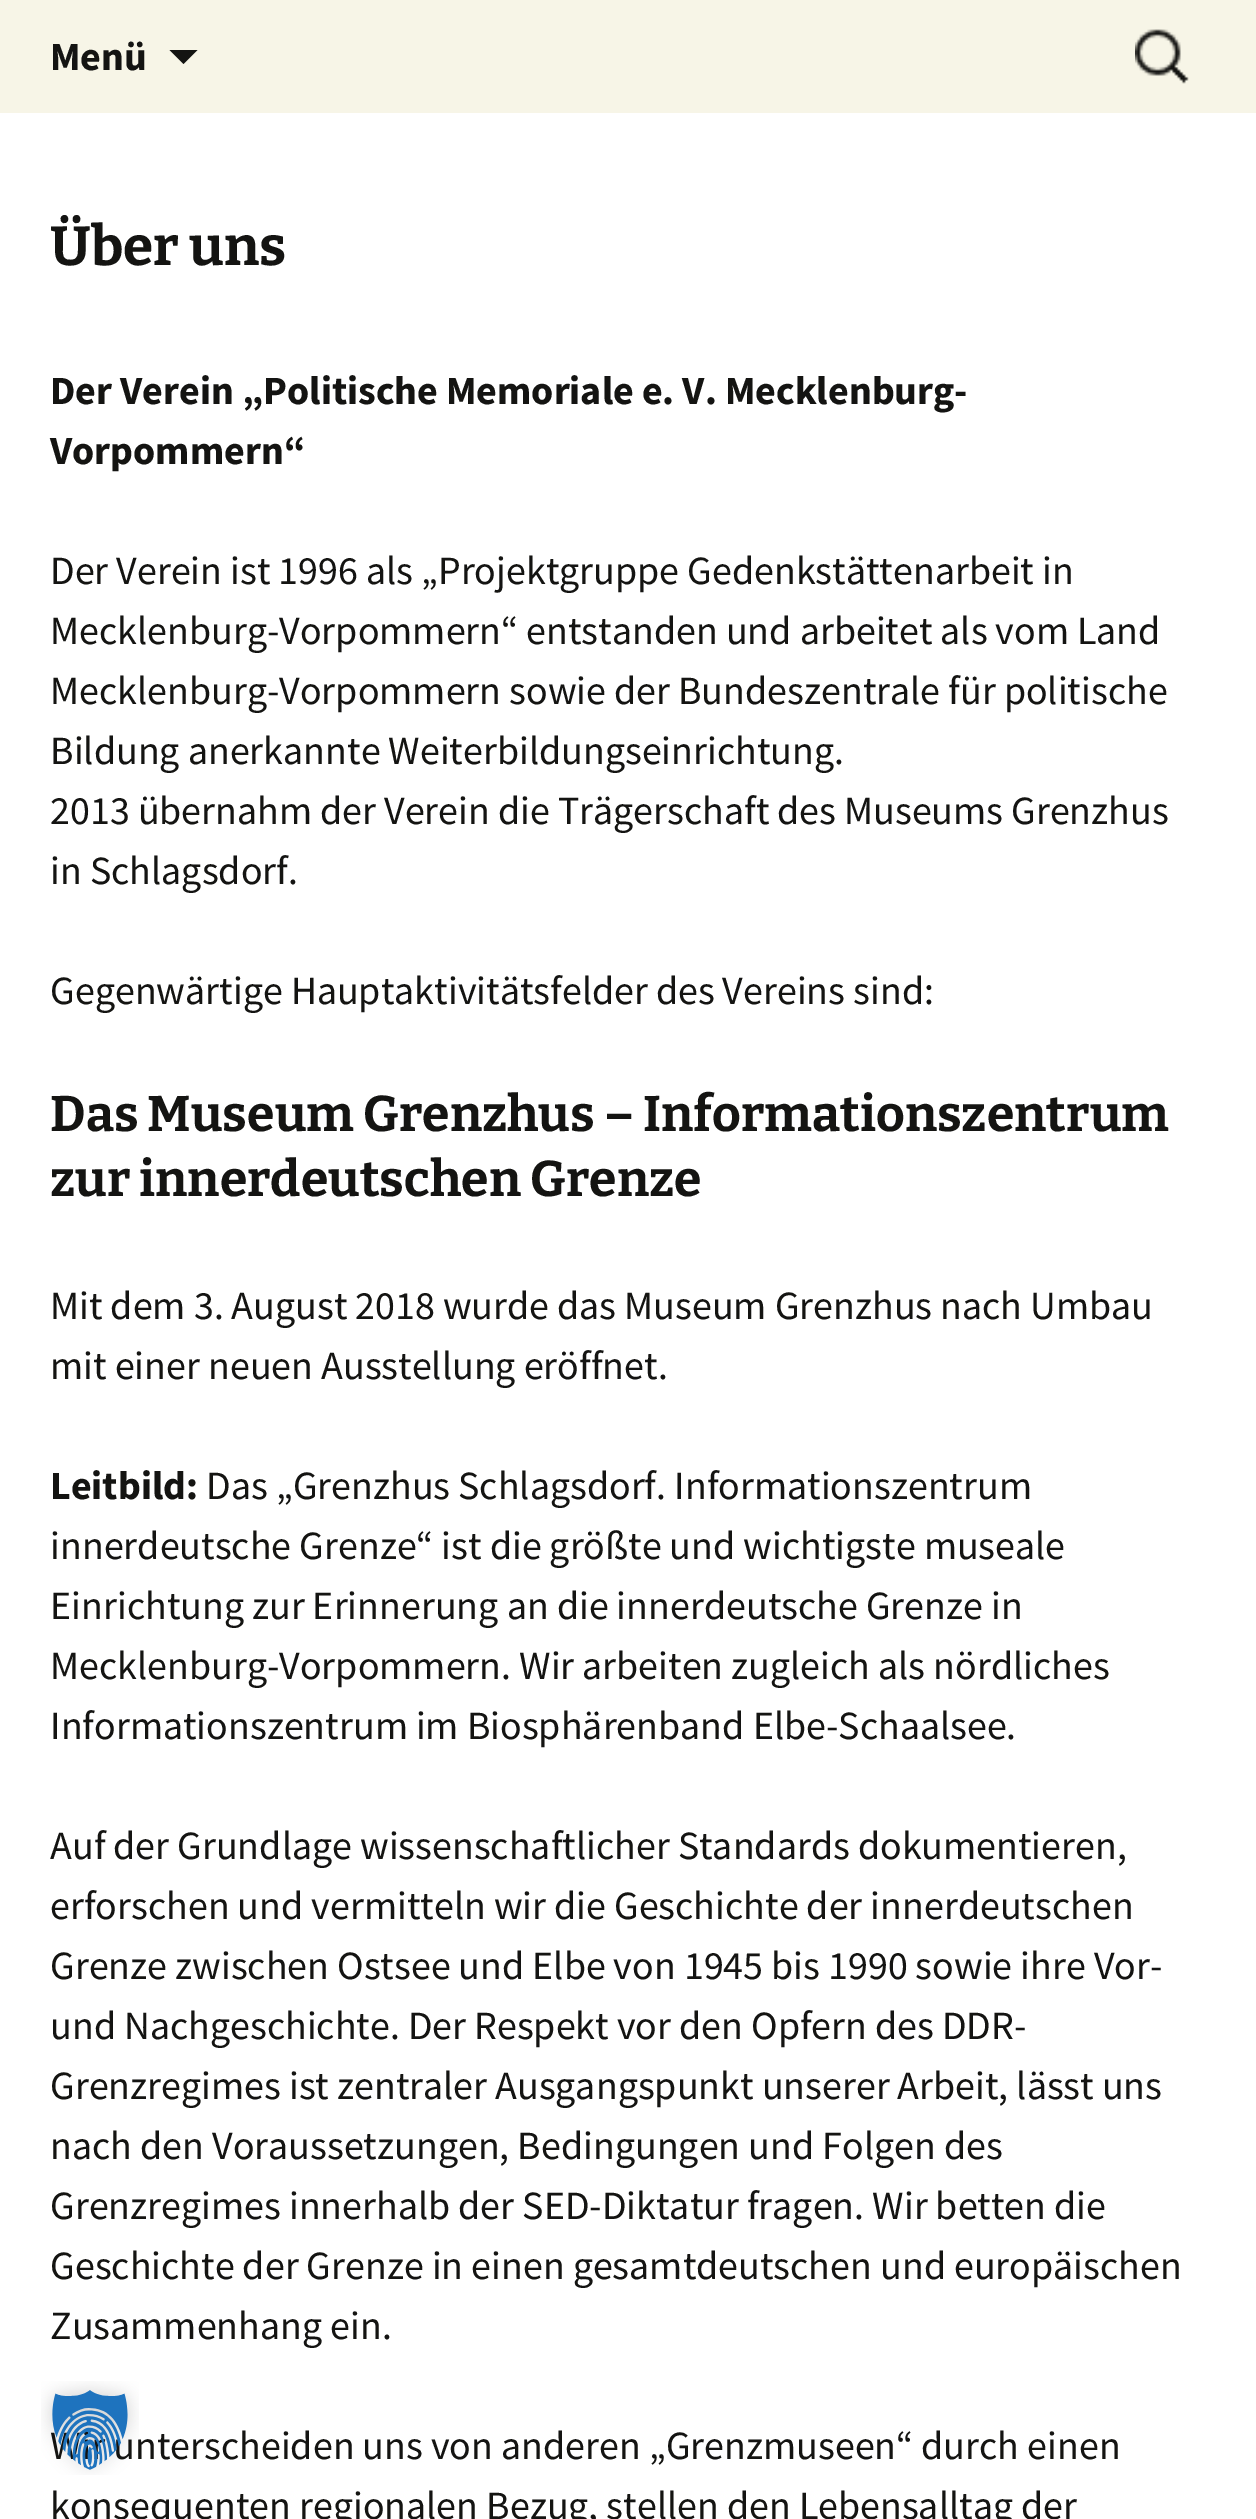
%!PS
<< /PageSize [1256 2519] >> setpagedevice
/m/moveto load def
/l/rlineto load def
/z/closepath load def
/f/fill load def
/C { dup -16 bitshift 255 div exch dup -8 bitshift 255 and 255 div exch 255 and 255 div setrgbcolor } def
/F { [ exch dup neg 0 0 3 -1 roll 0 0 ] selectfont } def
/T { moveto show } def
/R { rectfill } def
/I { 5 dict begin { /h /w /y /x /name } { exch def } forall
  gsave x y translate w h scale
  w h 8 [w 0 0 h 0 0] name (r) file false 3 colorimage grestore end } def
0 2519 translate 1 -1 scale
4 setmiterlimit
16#FFFFFF C
0 0 1256 2519 R
16#F7F5E7 C
0 0 1256 113 R
/SourceSansPro-Bold 40 F
16#141412 C
(Menü) 50 70 T
169.5 50 m 14 14 l 14 -14 l z f
(1.rgb) 1135 29 54 55 I
/Bitter-Thin 55 F
(Über uns) 50 265 T
/SourceSansPro-Bold 40 F
(Der Verein „Politische Memoriale e. V. Mecklenburg-) 50 404 T
(Vorpommern“) 50 464 T
/SourceSansPro-Regular 40 F
(Der Verein ist 1996 als „Projektgruppe Gedenkstättenarbeit in) 50 584 T
(Mecklenburg-Vorpommern“ entstanden und arbeitet als vom Land) 50 644 T
(Mecklenburg-Vorpommern sowie der Bundeszentrale für politische) 50 704 T
(Bildung anerkannte Weiterbildungseinrichtung.) 50 764 T
(2013 übernahm der Verein die Trägerschaft des Museums Grenzhus) 50 824 T
(in Schlagsdorf.) 50 884 T
(Gegenwärtige Hauptaktivitätsfelder des Vereins sind:) 50 1004 T
/Bitter-Thin 50 F
(Das Museum Grenzhus – Informationszentrum) 50 1131 T
(zur innerdeutschen Grenze) 50 1196 T
/SourceSansPro-Regular 40 F
(Mit dem 3. August 2018 wurde das Museum Grenzhus nach Umbau) 50 1319 T
(mit einer neuen Ausstellung eröffnet.) 50 1379 T
/SourceSansPro-Bold 40 F
(Leitbild:) 50 1499 T
/SourceSansPro-Regular 40 F
(Das „Grenzhus Schlagsdorf. Informationszentrum) 206 1499 T
(innerdeutsche Grenze“ ist die größte und wichtigste museale) 50 1559 T
(Einrichtung zur Erinnerung an die innerdeutsche Grenze in) 50 1619 T
(Mecklenburg-Vorpommern. Wir arbeiten zugleich als nördliches) 50 1679 T
(Informationszentrum im Biosphärenband Elbe-Schaalsee.) 50 1739 T
(Auf der Grundlage wissenschaftlicher Standards dokumentieren,) 50 1859 T
(erforschen und vermitteln wir die Geschichte der innerdeutschen) 50 1919 T
(Grenze zwischen Ostsee und Elbe von 1945 bis 1990 sowie ihre Vor-) 50 1979 T
(und Nachgeschichte. Der Respekt vor den Opfern des DDR-) 50 2039 T
(Grenzregimes ist zentraler Ausgangspunkt unserer Arbeit, lässt uns) 50 2099 T
(nach den Voraussetzungen, Bedingungen und Folgen des) 50 2159 T
(Grenzregimes innerhalb der SED-Diktatur fragen. Wir betten die) 50 2219 T
(Geschichte der Grenze in einen gesamtdeutschen und europäischen) 50 2279 T
(Zusammenhang ein.) 50 2339 T
(Wir unterscheiden uns von anderen „Grenzmuseen“ durch einen) 50 2459 T
(konsequenten regionalen Bezug, stellen den Lebensalltag der) 50 2519 T
(2.rgb) 41 2381 98 94 I
showpage
